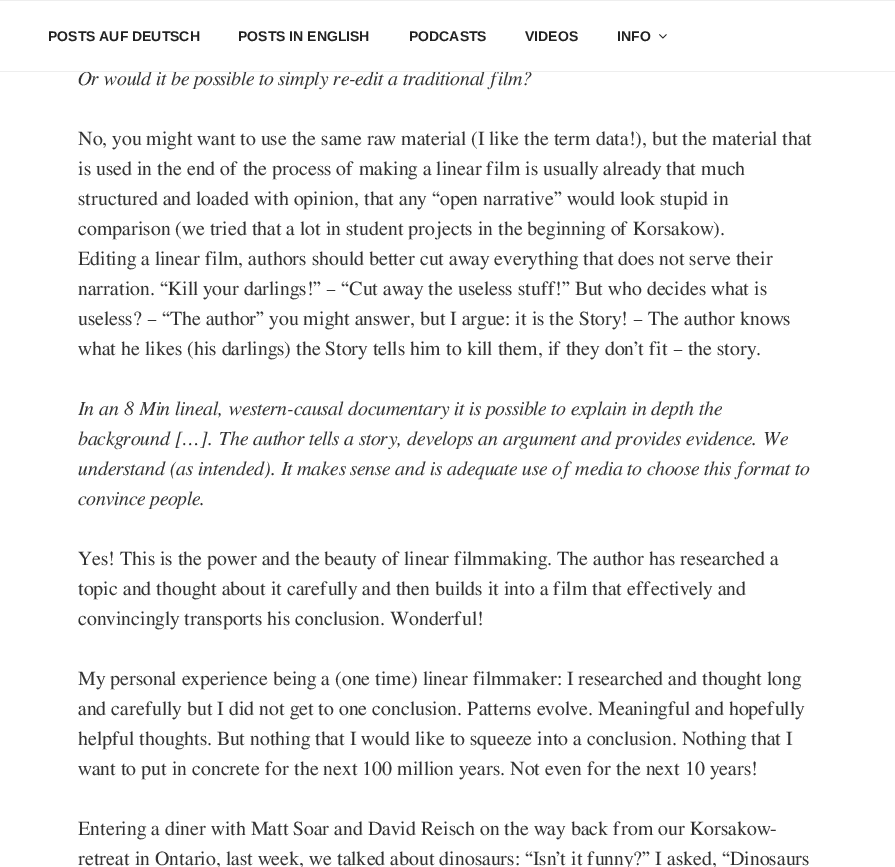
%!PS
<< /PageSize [895 867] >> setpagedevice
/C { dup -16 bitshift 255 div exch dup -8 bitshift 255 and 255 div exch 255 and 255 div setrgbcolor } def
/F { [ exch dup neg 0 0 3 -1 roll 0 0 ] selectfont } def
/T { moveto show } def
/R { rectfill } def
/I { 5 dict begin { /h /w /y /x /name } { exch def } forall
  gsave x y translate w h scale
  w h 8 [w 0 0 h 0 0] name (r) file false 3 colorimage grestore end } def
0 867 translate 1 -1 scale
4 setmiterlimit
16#FFFFFF C
0 0 895 867 R
16#EEEEEE C
0 0 895 1 R
/FreeSerif-Italic 20 F
16#333333 C
(Or would it be possible to simply re-edit a traditional film?) 78 85 T
16#EEEEEE C
0 71 895 1 R
/LiberationSans-Bold 14 F
16#222222 C
(POSTS AUF DEUTSCH) 48 41 T
(POSTS IN ENGLISH) 238 41 T
(PODCASTS) 409 41 T
(VIDEOS) 525 41 T
(INFO) 617 41 T
(1.rgb) 659 34 8 5 I
/FreeSerif-Regular 20 F
16#333333 C
(No, you might want to use the same raw material \(I like the term data!\), but the material that) 78 145 T
(is used in the end of the process of making a linear film is usually already that much) 78 175 T
(structured and loaded with opinion, that any “open narrative” would look stupid in) 78 205 T
(comparison \(we tried that a lot in student projects in the beginning of Korsakow\).) 78 235 T
(Editing a linear film, authors should better cut away everything that does not serve their) 78 265 T
(narration. “Kill your darlings!” – “Cut away the useless stuff!” But who decides what is) 78 295 T
(useless? – “The author” you might answer, but I argue: it is the Story! – The author knows) 78 325 T
(what he likes \(his darlings\) the Story tells him to kill them, if they don’t fit – the story.) 78 355 T
/FreeSerif-Italic 20 F
(In an 8 Min lineal, western-causal documentary it is possible to explain in depth the) 78 415 T
(background […]. The author tells a story, develops an argument and provides evidence. We) 78 445 T
(understand \(as intended\). It makes sense and is adequate use of media to choose this format to) 78 475 T
(convince people) 78 505 T
/FreeSerif-Regular 20 F
(.) 199 505 T
(Yes! This is the power and the beauty of linear filmmaking. The author has researched a) 78 565 T
(topic and thought about it carefully and then builds it into a film that effectively and) 78 595 T
(convincingly transports his conclusion. Wonderful!) 78 625 T
(My personal experience being a \(one time\) linear filmmaker: I researched and thought long) 78 685 T
(and carefully but I did not get to one conclusion. Patterns evolve. Meaningful and hopefully) 78 715 T
(helpful thoughts. But nothing that I would like to squeeze into a conclusion. Nothing that I) 78 745 T
(want to put in concrete for the next 100 million years. Not even for the next 10 years!) 78 775 T
(Entering a diner with Matt Soar and David Reisch on the way back from our Korsakow-) 78 835 T
(retreat in Ontario, last week, we talked about dinosaurs: “Isn’t it funny?” I asked, “Dinosaurs) 78 865 T
showpage
